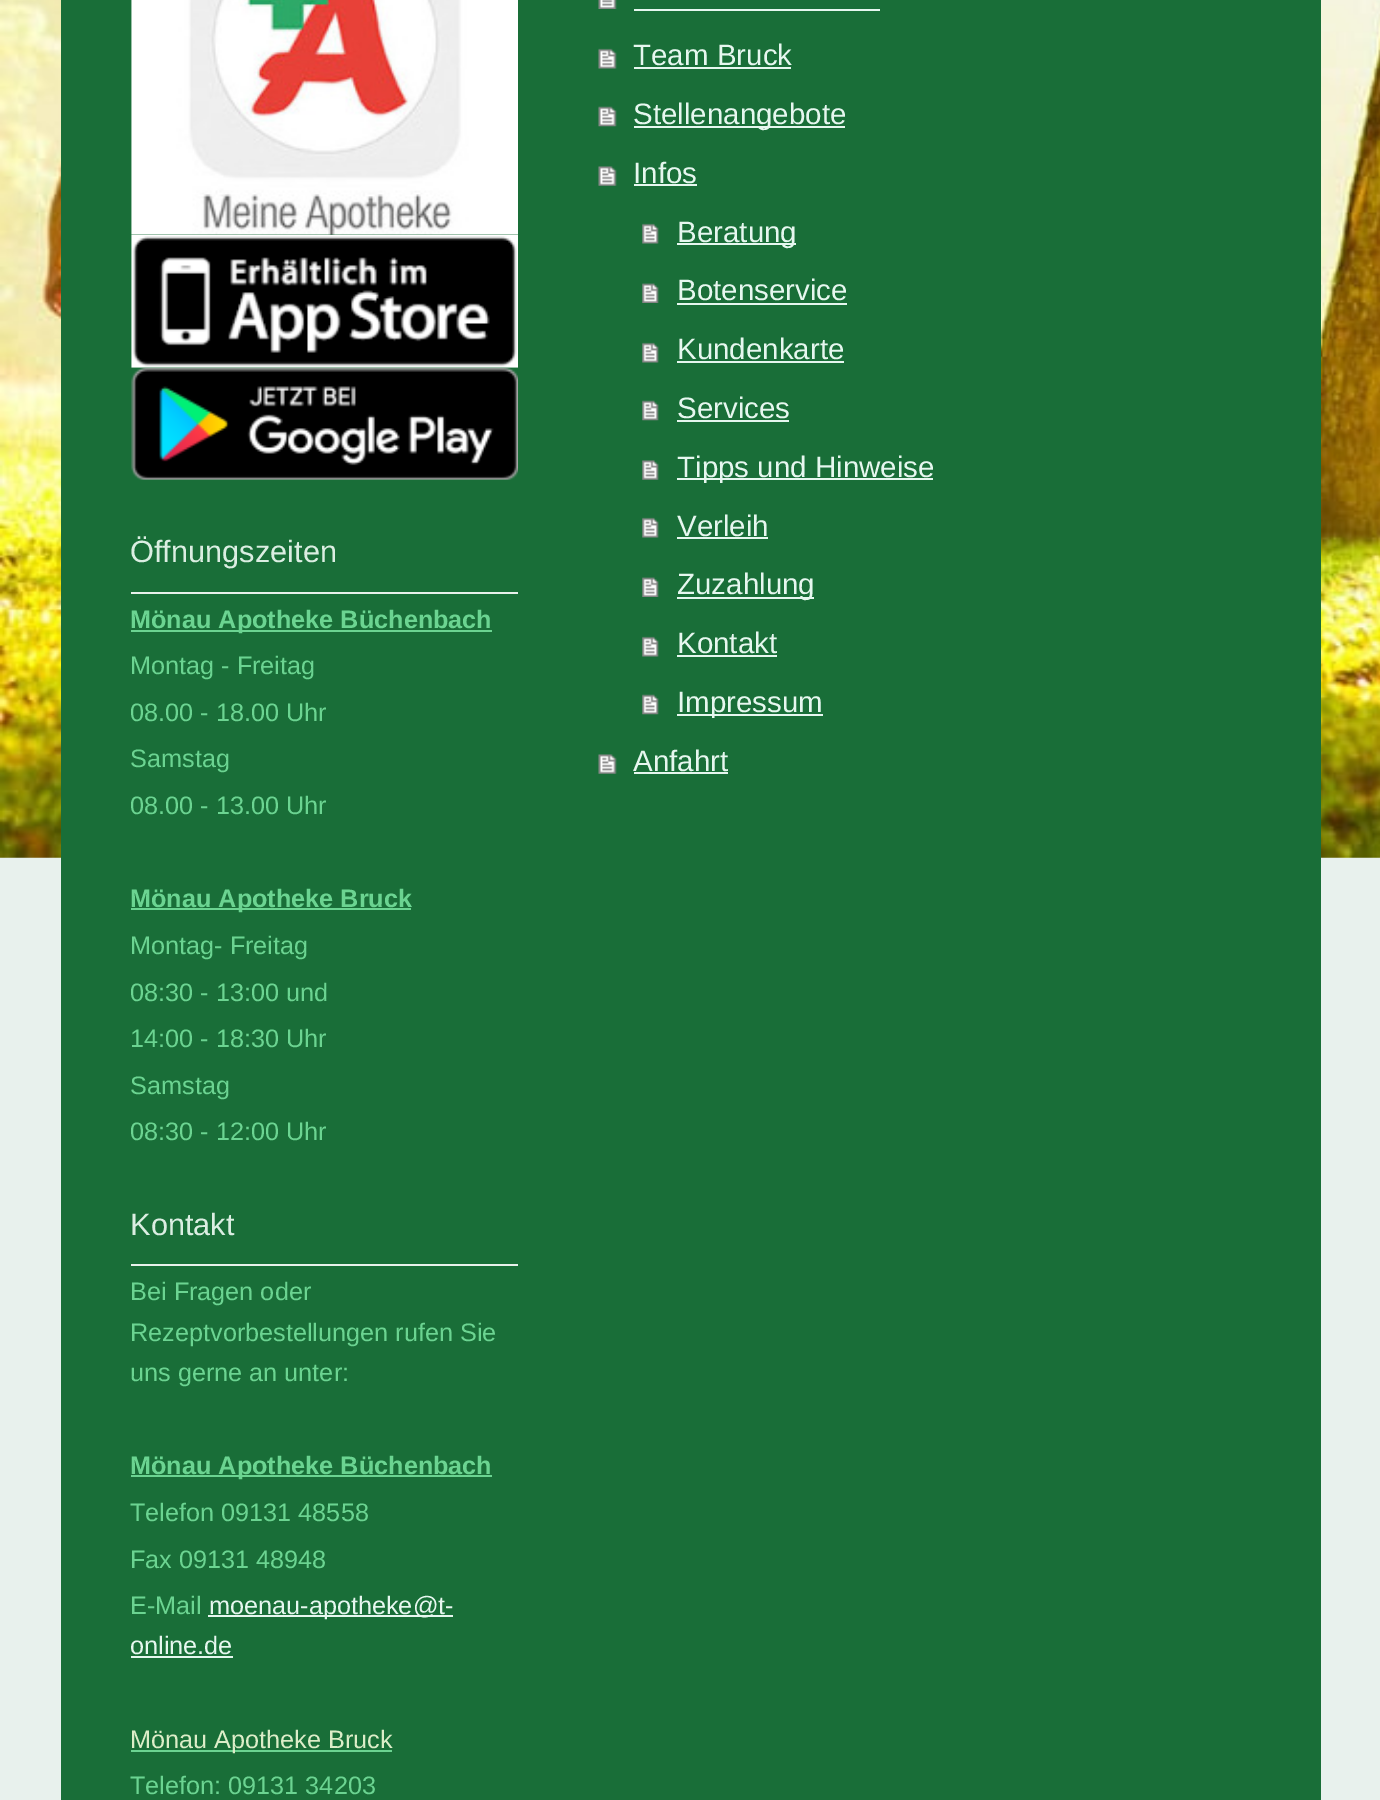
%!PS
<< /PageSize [1380 1800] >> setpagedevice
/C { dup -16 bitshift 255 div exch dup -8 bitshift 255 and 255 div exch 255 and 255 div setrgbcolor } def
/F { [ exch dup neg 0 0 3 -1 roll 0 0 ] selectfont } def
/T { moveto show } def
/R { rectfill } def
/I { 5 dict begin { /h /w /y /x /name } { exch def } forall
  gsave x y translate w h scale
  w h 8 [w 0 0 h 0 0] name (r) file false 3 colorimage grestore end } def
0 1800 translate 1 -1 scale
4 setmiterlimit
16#E8F1ED C
0 0 1380 1800 R
(1.rgb) 0 0 1380 858 I
16#196E38 C
61 0 1260 1800 R
(2.rgb) 598 0 19 9 I
16#E6F7EF C
634 9 246 2 R
(3.rgb) 598 48 19 21 I
/LiberationSans-Regular 29.5 F
(Team Bruck) 633 65 T
634 67 157 2 R
(4.rgb) 598 106 19 21 I
634 126 211 2 R
(Stellenangebote) 633 124 T
(5.rgb) 598 166 19 20 I
(Infos) 633 183 T
634 184 63 2 R
(6.rgb) 642 223 17 21 I
677 243 119 2 R
(Beratung) 677 242 T
(7.rgb) 642 283 17 20 I
(Botenservice) 677 300 T
677 303 170 2 R
(6.rgb) 642 342 17 21 I
(Kundenkarte) 677 359 T
677 361 167 2 R
(8.rgb) 642 400 17 21 I
(Services) 677 418 T
677 420 112 2 R
(9.rgb) 642 460 17 20 I
677 478 256 2 R
(Tipps und Hinweise) 677 477 T
(6.rgb) 642 517 17 21 I
(Verleih) 677 536 T
677 537 91 2 R
(7.rgb) 642 577 17 20 I
677 597 137 2 R
(Zuzahlung) 677 594 T
(6.rgb) 642 636 17 21 I
(Kontakt) 677 653 T
677 655 100 2 R
(8.rgb) 642 694 17 21 I
677 714 146 2 R
(Impressum) 677 712 T
(5.rgb) 598 754 19 20 I
(Anfahrt) 633 771 T
634 772 94 2 R
(10.rgb) 131 0 387 235 I
(11.rgb) 131 234 387 134 I
(12.rgb) 131 368 387 112 I
16#E8F1EB C
131 592 387 2 R
/LiberationSans-Regular 30.75 F
16#DBEEE2 C
(Öffnungszeiten) 130 562 T
16#6BD491 C
131 630 361 2 R
/LiberationSans-Bold 25.25 F
(Mönau Apotheke Büchenbach) 130 628 T
/LiberationSans-Regular 25.25 F
(Montag - Freitag) 130 674 T
(08.00 - 18.00 Uhr) 130 721 T
(Samstag) 130 767 T
(08.00 - 13.00 Uhr) 130 814 T
131 908 280 2 R
/LiberationSans-Bold 25.25 F
(Mönau Apotheke Bruck) 130 907 T
/LiberationSans-Regular 25.25 F
(Montag- Freitag) 130 954 T
(08:30 - 13:00 und) 130 1001 T
(14:00 - 18:30 Uhr) 130 1047 T
(Samstag) 130 1094 T
(08:30 - 12:00 Uhr) 130 1140 T
16#E8F1EB C
131 1264 387 2 R
/LiberationSans-Regular 30.75 F
16#DBEEE2 C
(Kontakt) 130 1235 T
/LiberationSans-Regular 25.25 F
16#6BD491 C
(Bei Fragen oder) 130 1300 T
(Rezeptvorbestellungen rufen Sie) 130 1341 T
(uns gerne an unter:) 130 1381 T
131 1475 361 2 R
/LiberationSans-Bold 25.25 F
(Mönau Apotheke Büchenbach) 130 1474 T
/LiberationSans-Regular 25.25 F
(Telefon 09131 48558) 130 1521 T
(Fax 09131 48948) 130 1568 T
(E-Mail) 130 1614 T
16#E6F7EF C
208 1615 245 2 R
(moenau-apotheke@t-) 209 1614 T
(online.de) 130 1654 T
131 1656 102 2 R
16#6BD491 C
131 1750 261 2 R
16#DCEDC8 C
(Mönau Apotheke Bruck) 130 1748 T
16#6BD491 C
(Telefon: 09131 34203) 130 1794 T
showpage
